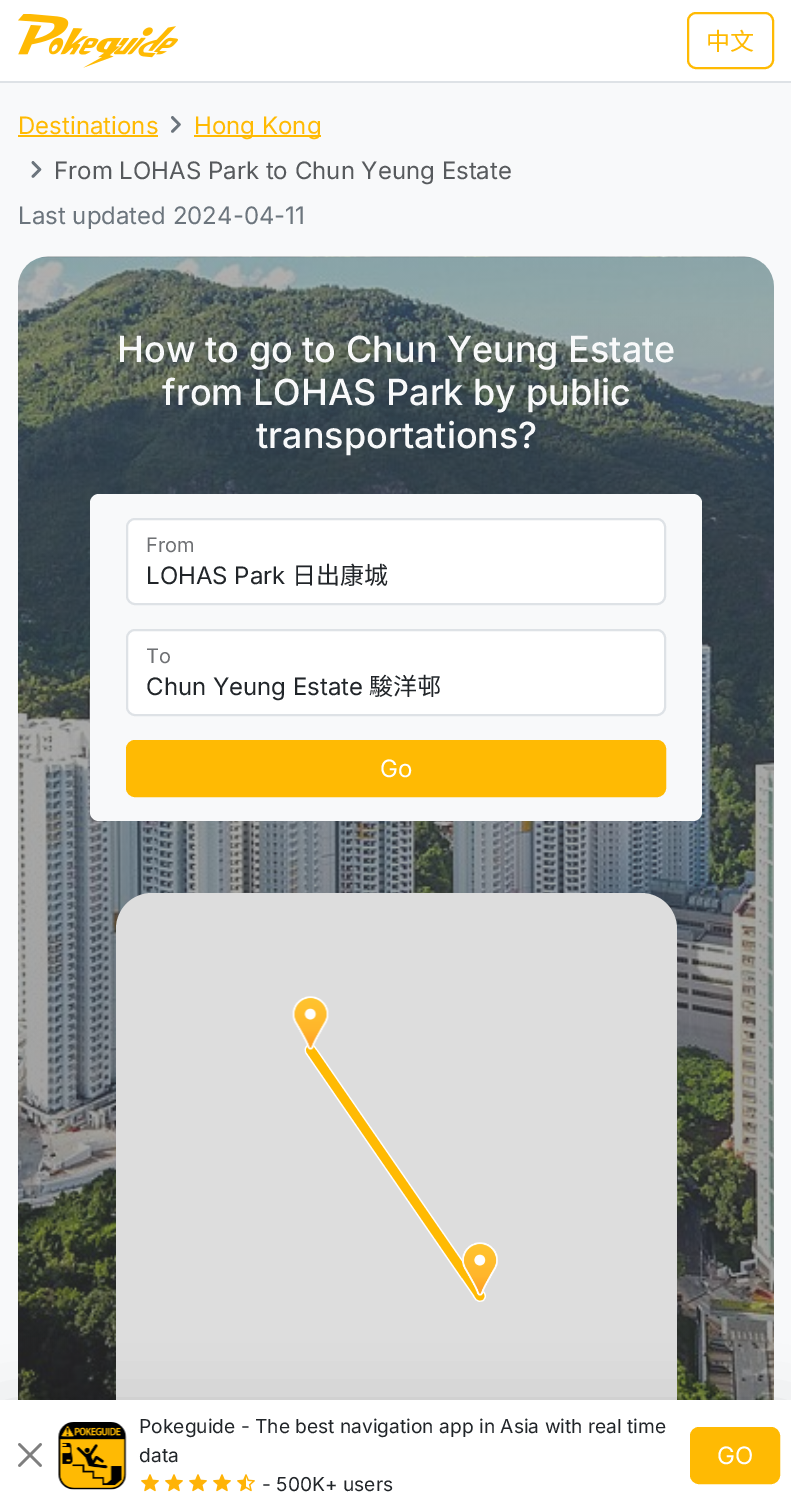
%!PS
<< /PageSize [791 1510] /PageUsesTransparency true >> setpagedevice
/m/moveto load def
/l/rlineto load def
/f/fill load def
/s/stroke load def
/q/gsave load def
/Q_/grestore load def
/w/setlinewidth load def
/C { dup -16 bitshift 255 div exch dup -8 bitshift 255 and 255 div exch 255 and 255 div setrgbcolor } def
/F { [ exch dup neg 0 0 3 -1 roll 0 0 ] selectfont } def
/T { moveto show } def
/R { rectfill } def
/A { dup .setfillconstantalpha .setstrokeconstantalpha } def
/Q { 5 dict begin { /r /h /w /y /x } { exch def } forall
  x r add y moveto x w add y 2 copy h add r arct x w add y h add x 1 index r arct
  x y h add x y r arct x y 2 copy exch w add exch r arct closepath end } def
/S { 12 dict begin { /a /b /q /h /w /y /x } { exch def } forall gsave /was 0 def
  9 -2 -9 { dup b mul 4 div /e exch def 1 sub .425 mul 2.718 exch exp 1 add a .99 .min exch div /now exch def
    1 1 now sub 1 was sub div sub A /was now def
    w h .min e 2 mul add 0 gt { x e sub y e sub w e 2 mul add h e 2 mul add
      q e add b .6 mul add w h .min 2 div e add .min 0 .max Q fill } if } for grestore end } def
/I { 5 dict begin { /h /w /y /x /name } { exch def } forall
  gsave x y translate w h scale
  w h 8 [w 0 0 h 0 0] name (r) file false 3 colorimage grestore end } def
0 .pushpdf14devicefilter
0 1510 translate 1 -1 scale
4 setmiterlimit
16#FFFFFF C
0 0 791 1510 R
16#DEE2E6 C
0 81 791 2 R
(1.rgb) 18 14 160 54 I
16#FFBA03 C
2 w
688 13 85 55 8 Q s
/NotoSansHK-Regular 24 F
(中文) 706 50 T
16#F8F9FA C
0 83 791 1317 R
/Inter-Regular 24 F
16#FFBA03 C
(Destinations) 18 134 T
18 135 140 2 R
(2.rgb) 171 116 10 17 I
194 135 127 2 R
(Hong Kong) 194 134 T
(3.rgb) 31 161 11 17 I
16#575A5D C
(From LOHAS Park to Chun Yeung Estate) 54 179 T
16#6C757D C
(Last updated 2024-04-11) 18 224 T
(4.rgb) 18 256 756 1144 I
/Inter-Medium 36 F
16#F8F9FA C
(How to go to Chun Yeung Estate) 117 362 T
(from LOHAS Park by public) 162 405 T
(transportations?) 256 448 T
90 494 612 327 9 Q f
16#FFFFFF C
127 519 538 85 8 Q q f Q_
16#DEE2E6 C
s
/Inter-Regular 20 F
16#6F7174 C
(From) 146 552 T
/Inter-Regular 24 F
16#212529 C
(LOHAS Park) 146 584 T
/NotoSansHK-Regular 24 F
(日出康城) 292 584 T
16#FFFFFF C
127 630 538 85 8 Q q f Q_
16#DEE2E6 C
s
/Inter-Regular 20 F
16#6F7174 C
(To) 146 663 T
/Inter-Regular 24 F
16#212529 C
(Chun Yeung Estate) 146 695 T
/NotoSansHK-Regular 24 F
(駿洋邨) 369 695 T
16#FFBA03 C
127 741 538 55 8 Q q f Q_
s
/Inter-Regular 24 F
16#FFFFFF C
(Go) 380 777 T
16#DDDDDD C
116 893 561 561 36 Q f
16#FFFFFF C
12 w
1 setlinecap
1 setlinejoin
480 1296 m -169.5 -246 l s
16#FFBA03 C
9 w
480 1296 m -169.5 -246 l s
(5.rgb) 292 996 37 54 I
(6.rgb) 462 1242 36 54 I
16#000000 C
0 1424 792 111 0 36 .18 S
16#FFFFFF C
0 1400 791 110 R
(7.rgb) 18 1443 24 24 I
(8.rgb) 58 1422 69 68 I
/Inter-Regular 19.2 F
16#212529 C
(Pokeguide - The best navigation app in Asia with real time) 139 1433 T
(data) 139 1462 T
(9.rgb) 141 1474 18 18 I
(9.rgb) 165 1474 18 18 I
(9.rgb) 189 1474 18 18 I
(9.rgb) 213 1474 18 18 I
(10.rgb) 237 1474 18 18 I
(- 500K+ users) 262 1491 T
16#FFBA03 C
691 1428 88 55 8 Q q f Q_
2 w
0 setlinecap
0 setlinejoin
s
/Inter-Regular 24 F
16#FFFFFF C
(GO) 717 1464 T
.poppdf14devicefilter showpage
